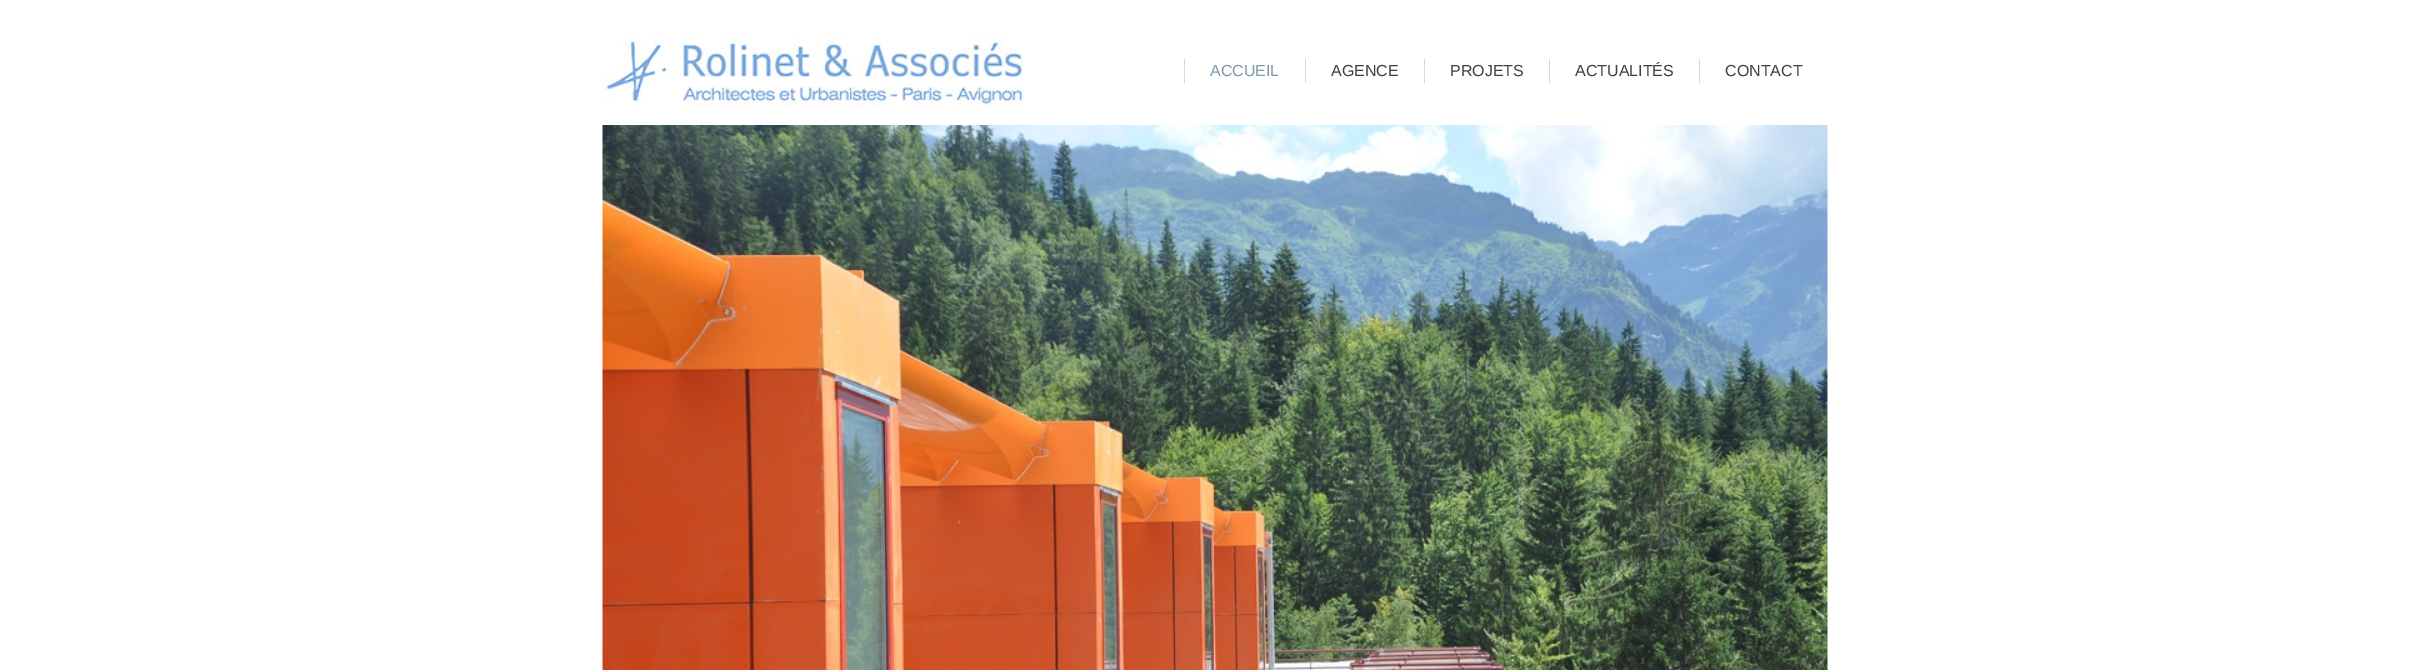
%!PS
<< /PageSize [2428 670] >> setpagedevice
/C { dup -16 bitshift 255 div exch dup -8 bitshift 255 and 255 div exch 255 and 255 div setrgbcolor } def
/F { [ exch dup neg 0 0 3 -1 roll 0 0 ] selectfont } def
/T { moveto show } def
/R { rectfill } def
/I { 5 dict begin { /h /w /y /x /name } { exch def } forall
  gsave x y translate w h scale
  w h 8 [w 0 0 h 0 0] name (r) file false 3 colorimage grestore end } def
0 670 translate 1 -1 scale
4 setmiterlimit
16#FFFFFF C
0 0 2428 670 R
(1.rgb) 602 37 421 70 I
/LiberationSans-Regular 16 F
16#7C98AB C
(ACCUEIL) 1210 76 T
16#D8D8D8 C
1184 59 1 24 R
16#3F3F3F C
(AGENCE) 1331 76 T
16#D8D8D8 C
1305 59 1 24 R
16#3F3F3F C
(PROJETS) 1450 76 T
16#D8D8D8 C
1424 59 1 24 R
16#3F3F3F C
(ACTUALITÉS) 1575 76 T
16#D8D8D8 C
1549 59 1 24 R
16#3F3F3F C
(CONTACT) 1725 76 T
16#D8D8D8 C
1699 59 1 24 R
(2.rgb) 602 125 1226 545 I
showpage
